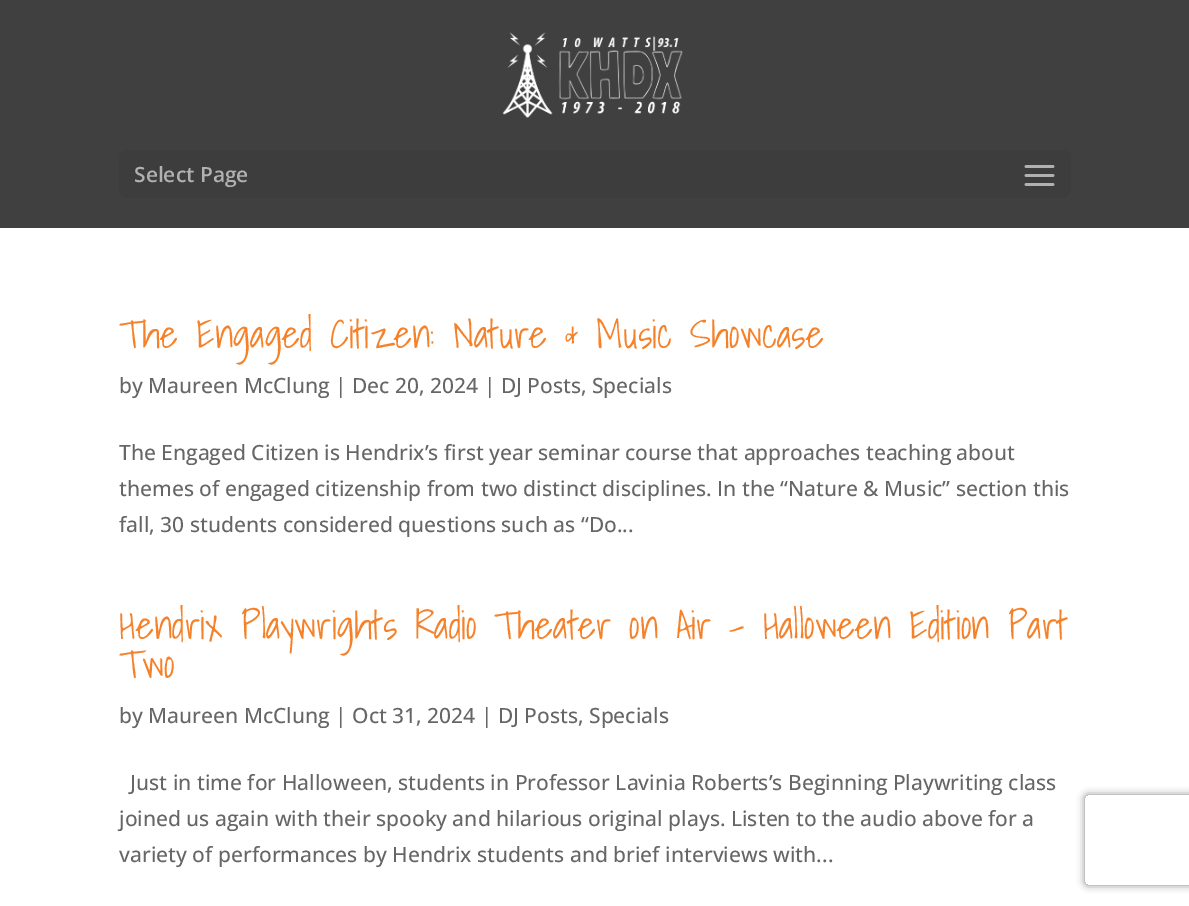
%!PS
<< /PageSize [1189 906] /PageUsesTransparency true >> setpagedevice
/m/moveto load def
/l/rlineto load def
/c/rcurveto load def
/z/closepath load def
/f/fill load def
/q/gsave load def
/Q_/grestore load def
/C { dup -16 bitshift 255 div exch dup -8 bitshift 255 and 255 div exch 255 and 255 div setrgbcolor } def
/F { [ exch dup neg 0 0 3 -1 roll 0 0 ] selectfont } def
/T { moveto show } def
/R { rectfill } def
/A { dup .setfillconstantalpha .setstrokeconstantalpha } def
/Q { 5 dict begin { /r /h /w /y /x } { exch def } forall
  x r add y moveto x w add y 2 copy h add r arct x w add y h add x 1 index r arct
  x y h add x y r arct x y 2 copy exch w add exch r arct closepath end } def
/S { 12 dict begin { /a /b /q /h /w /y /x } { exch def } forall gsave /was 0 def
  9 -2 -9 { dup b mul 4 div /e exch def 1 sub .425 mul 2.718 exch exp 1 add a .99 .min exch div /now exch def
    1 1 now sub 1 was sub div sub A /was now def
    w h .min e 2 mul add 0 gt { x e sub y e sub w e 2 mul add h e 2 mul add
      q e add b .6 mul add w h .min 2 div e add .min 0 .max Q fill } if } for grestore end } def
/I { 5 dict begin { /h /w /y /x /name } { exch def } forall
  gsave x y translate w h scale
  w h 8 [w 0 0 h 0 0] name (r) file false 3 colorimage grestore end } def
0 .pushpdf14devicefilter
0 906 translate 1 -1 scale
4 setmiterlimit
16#FFFFFF C
0 0 1189 906 R
16#404040 C
0 0 1189 228 R
(1.rgb) 502 32 181 86 I
16#3D3D3D C
119 150 952 48 8 Q f
/OpenSans-SemiBold 21 F
16#B1B1B1 C
(Select Page) 134 182 T
(2.rgb) 1024 165 31 21 I
/ShadowsIntoLight-Light 39 F
16#F5822A C
(The Engaged Citizen: Nature & Music Showcase) 119 348 T
/OpenSans-Medium 21 F
16#666666 C
(by Maureen McClung | Dec 20, 2024 | DJ Posts, Specials) 119 393 T
(The Engaged Citizen is Hendrix’s first year seminar course that approaches teaching about) 119 460 T
(themes of engaged citizenship from two distinct disciplines. In the “Nature & Music” section this) 119 496 T
(fall, 30 students considered questions such as “Do...) 119 532 T
/ShadowsIntoLight-Light 39 F
16#F5822A C
(Hendrix Playwrights Radio Theater on Air – Halloween Edition Part) 119 639 T
(Two) 119 678 T
/OpenSans-Medium 21 F
16#666666 C
(by Maureen McClung | Oct 31, 2024 | DJ Posts, Specials) 119 723 T
(Just in time for Halloween, students in Professor Lavinia Roberts’s Beginning Playwriting class) 130 790 T
(joined us again with their spooky and hilarious original plays. Listen to the audio above for a) 119 826 T
(variety of performances by Hendrix students and brief interviews with...) 119 862 T
q
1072 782 m 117 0 l 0 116 l -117 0 l z 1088 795 m 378 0 l 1.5 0 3 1.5 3 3 c 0 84 l 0 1.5 -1.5 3 -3 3 c -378 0 l -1.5 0 -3 -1.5 -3 -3 c 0 -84 l 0 -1.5 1.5 -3 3 -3 c z eoclip newpath
16#808080 C
1085 795 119 90 3 4 1 S
Q_
.poppdf14devicefilter showpage
